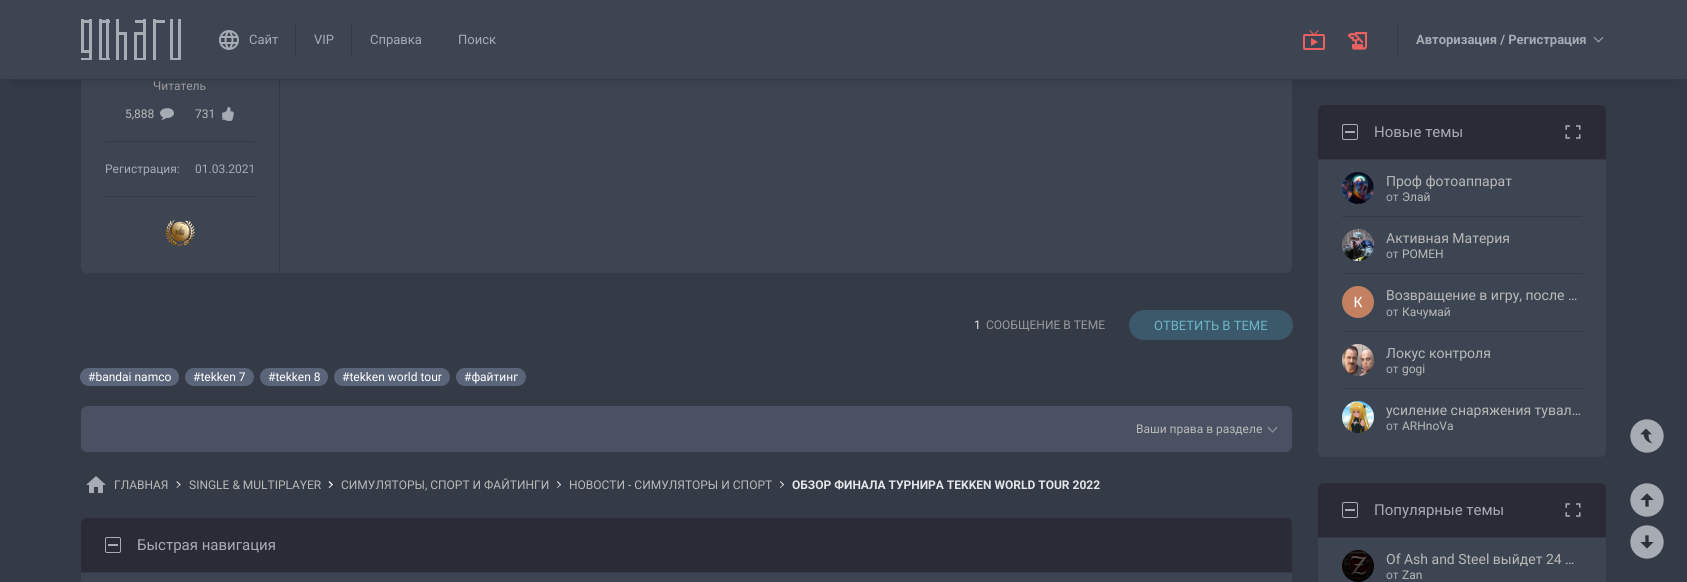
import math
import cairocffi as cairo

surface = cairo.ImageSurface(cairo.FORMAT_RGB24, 1687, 582)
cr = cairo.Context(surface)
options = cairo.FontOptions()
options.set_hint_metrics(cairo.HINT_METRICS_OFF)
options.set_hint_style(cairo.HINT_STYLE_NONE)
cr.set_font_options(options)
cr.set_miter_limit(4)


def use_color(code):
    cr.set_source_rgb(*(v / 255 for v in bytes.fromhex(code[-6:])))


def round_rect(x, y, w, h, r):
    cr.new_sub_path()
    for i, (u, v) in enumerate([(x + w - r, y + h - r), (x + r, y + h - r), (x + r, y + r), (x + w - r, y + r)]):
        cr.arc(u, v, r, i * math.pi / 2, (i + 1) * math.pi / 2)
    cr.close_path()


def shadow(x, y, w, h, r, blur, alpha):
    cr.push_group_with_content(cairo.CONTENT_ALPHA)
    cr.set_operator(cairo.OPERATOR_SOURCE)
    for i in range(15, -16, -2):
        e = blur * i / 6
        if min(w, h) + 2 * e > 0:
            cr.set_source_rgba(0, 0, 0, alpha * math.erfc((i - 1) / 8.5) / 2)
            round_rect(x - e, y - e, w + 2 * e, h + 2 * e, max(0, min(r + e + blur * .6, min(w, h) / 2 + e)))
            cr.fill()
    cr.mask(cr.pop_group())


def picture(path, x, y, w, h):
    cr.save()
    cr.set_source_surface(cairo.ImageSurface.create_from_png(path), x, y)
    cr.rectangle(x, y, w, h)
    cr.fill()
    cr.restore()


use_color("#343a46")
cr.paint()
use_color("#3d4552")
cr.new_path()
cr.move_to(81, -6)
cr.line_to(280, -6)
cr.line_to(280, 273)
cr.line_to(87, 273)
cr.curve_to(83.5, 273, 81, 270.5, 81, 267)
cr.close_path()
cr.fill()
use_color("#333b46")
cr.rectangle(279, 80, 1, 193)
cr.fill()
use_color("#3d4552")
cr.new_path()
cr.move_to(280, -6)
cr.line_to(1292, -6)
cr.line_to(1292, 267)
cr.curve_to(1292, 270.5, 1289.5, 273, 1286, 273)
cr.line_to(280, 273)
cr.close_path()
cr.fill()
use_color("#000000")
shadow(15, 30, 1657, 50, 0, 7.5, 0.15)
use_color("#3d4552")
cr.rectangle(0, 0, 1687, 79)
cr.fill()
use_color("#333b46")
cr.rectangle(12, 79, 1663, 1)
cr.fill()
picture("img1.png", 81, 19, 100, 41)
picture("img2.png", 219, 30, 20, 20)
cr.select_font_face("Roboto")
cr.set_font_size(13)
use_color("#a7abb4")
cr.move_to(249, 44)
cr.show_text("Сайт")
use_color("#333b46")
cr.rectangle(295, 25, 1, 30)
cr.fill()
use_color("#a7abb4")
cr.move_to(314, 44)
cr.show_text("VIP")
use_color("#333b46")
cr.rectangle(351, 25, 1, 30)
cr.fill()
use_color("#a7abb4")
cr.move_to(370, 44)
cr.show_text("Справка")
cr.move_to(458, 44)
cr.show_text("Поиск")
picture("img3.png", 1303, 30, 22, 20)
picture("img4.png", 1347, 32, 20, 18)
use_color("#333b46")
cr.rectangle(1397, 25, 1, 30)
cr.fill()
cr.select_font_face("Roboto", cairo.FONT_SLANT_NORMAL, cairo.FONT_WEIGHT_BOLD)
use_color("#a7abb4")
cr.move_to(1416, 44)
cr.show_text("Авторизация / Регистрация")
cr.new_path()
cr.move_to(1602.5, 37)
cr.line_to(1603.5, 37.5)
cr.line_to(1598.5, 42.5)
cr.line_to(1598, 41.5)
cr.close_path()
cr.fill()
cr.new_path()
cr.move_to(1594.5, 37)
cr.line_to(1599, 41.5)
cr.line_to(1598.5, 42.5)
cr.line_to(1593.5, 37.5)
cr.close_path()
cr.fill()
cr.select_font_face("Roboto")
cr.set_font_size(12)
use_color("#9b9a9d")
cr.move_to(153, 90)
cr.show_text("Читатель")
use_color("#b9b9b9")
cr.move_to(125, 118)
cr.show_text("5,888")
picture("img5.png", 160, 108, 14, 12)
cr.move_to(195, 118)
cr.show_text("731")
picture("img6.png", 222, 107, 12, 14)
use_color("#333b46")
cr.rectangle(105, 141, 150, 1)
cr.fill()
use_color("#a7abb4")
cr.move_to(105, 173)
cr.show_text("Регистрация:")
cr.move_to(195, 173)
cr.show_text("01.03.2021")
use_color("#333b46")
cr.rectangle(105, 196, 150, 1)
cr.fill()
picture("img7.png", 165, 220, 30, 26)
use_color("#e5e6ea")
cr.move_to(974, 329)
cr.show_text("1")
use_color("#9b9a9d")
cr.move_to(986, 329)
cr.show_text("СООБЩЕНИЕ В ТЕМЕ")
use_color("#3c586b")
round_rect(1129.5, 310.5, 163, 29, 14.5)
cr.fill_preserve()
cr.set_line_width(1)
cr.stroke()
cr.set_font_size(13)
use_color("#6bb6c7")
cr.move_to(1154, 330)
cr.show_text("ОТВЕТИТЬ В ТЕМЕ")
use_color("#5b657a")
round_rect(80, 368, 99, 18, 9)
cr.fill()
cr.set_font_size(12)
use_color("#ffffff")
cr.move_to(88, 381)
cr.show_text("#bandai namco")
use_color("#5b657a")
round_rect(185, 368, 69, 18, 9)
cr.fill()
use_color("#ffffff")
cr.move_to(193, 381)
cr.show_text("#tekken 7")
use_color("#5b657a")
round_rect(260, 368, 68, 18, 9)
cr.fill()
use_color("#ffffff")
cr.move_to(268, 381)
cr.show_text("#tekken 8")
use_color("#5b657a")
round_rect(334, 368, 116, 18, 9)
cr.fill()
use_color("#ffffff")
cr.move_to(342, 381)
cr.show_text("#tekken world tour")
use_color("#5b657a")
round_rect(456, 368, 70, 18, 9)
cr.fill()
use_color("#ffffff")
cr.move_to(464, 381)
cr.show_text("#файтинг")
use_color("#495162")
round_rect(81, 406, 1211, 46, 6)
cr.fill()
use_color("#b9b9b9")
cr.move_to(1136, 433)
cr.show_text("Ваши права в разделе")
use_color("#a7abb4")
cr.new_path()
cr.move_to(1276.5, 427)
cr.line_to(1277.5, 427.5)
cr.line_to(1272.5, 432.5)
cr.line_to(1272, 432)
cr.close_path()
cr.fill()
cr.new_path()
cr.move_to(1268.5, 427)
cr.line_to(1273, 432)
cr.line_to(1272.5, 432.5)
cr.line_to(1267.5, 427.5)
cr.close_path()
cr.fill()
picture("img8.png", 1630, 419, 34, 34)
picture("img9.png", 1630, 483, 34, 34)
picture("img10.png", 1630, 525, 34, 34)
picture("img11.png", 86, 476, 20, 17)
use_color("#b9b9b9")
cr.move_to(114, 489)
cr.show_text("ГЛАВНАЯ")
use_color("#e5e6ea")
cr.new_path()
cr.move_to(177, 481)
cr.line_to(180.5, 484.5)
cr.line_to(180, 485.5)
cr.line_to(176.5, 482)
cr.close_path()
cr.fill()
cr.new_path()
cr.move_to(180, 484)
cr.line_to(180.5, 484.5)
cr.line_to(177, 488)
cr.line_to(176.5, 487.5)
cr.close_path()
cr.fill()
use_color("#b9b9b9")
cr.move_to(189, 489)
cr.show_text("SINGLE & MULTIPLAYER")
use_color("#e5e6ea")
cr.new_path()
cr.move_to(329.5, 481)
cr.line_to(333, 484.5)
cr.line_to(332, 485.5)
cr.line_to(328.5, 482)
cr.close_path()
cr.fill()
cr.new_path()
cr.move_to(332, 484)
cr.line_to(333, 484.5)
cr.line_to(329.5, 488)
cr.line_to(328.5, 487.5)
cr.close_path()
cr.fill()
use_color("#b9b9b9")
cr.move_to(341, 489)
cr.show_text("СИМУЛЯТОРЫ, СПОРТ И ФАЙТИНГИ")
use_color("#e5e6ea")
cr.new_path()
cr.move_to(557.5, 481)
cr.line_to(561, 484.5)
cr.line_to(560.5, 485.5)
cr.line_to(557, 482)
cr.close_path()
cr.fill()
cr.new_path()
cr.move_to(560.5, 484)
cr.line_to(561, 484.5)
cr.line_to(557.5, 488)
cr.line_to(557, 487.5)
cr.close_path()
cr.fill()
use_color("#b9b9b9")
cr.move_to(569, 489)
cr.show_text("НОВОСТИ - СИМУЛЯТОРЫ И СПОРТ")
use_color("#e5e6ea")
cr.new_path()
cr.move_to(780.5, 481)
cr.line_to(784, 484.5)
cr.line_to(783.5, 485.5)
cr.line_to(780, 482)
cr.close_path()
cr.fill()
cr.new_path()
cr.move_to(783.5, 484)
cr.line_to(784, 484.5)
cr.line_to(780.5, 488)
cr.line_to(780, 487.5)
cr.close_path()
cr.fill()
cr.select_font_face("Roboto", cairo.FONT_SLANT_NORMAL, cairo.FONT_WEIGHT_BOLD)
cr.move_to(792, 489)
cr.show_text("ОБЗОР ФИНАЛА ТУРНИРА TEKKEN WORLD TOUR 2022")
use_color("#2b2b37")
cr.new_path()
cr.move_to(87, 518)
cr.line_to(1286, 518)
cr.curve_to(1289.5, 518, 1292, 520.5, 1292, 524)
cr.line_to(1292, 572)
cr.line_to(81, 572)
cr.line_to(81, 524)
cr.curve_to(81, 520.5, 83.5, 518, 87, 518)
cr.close_path()
cr.fill()
round_rect(105.5, 537.5, 15, 15, 1.5)
use_color("#a7abb4")
cr.stroke()
cr.rectangle(108, 544, 10, 2)
cr.fill()
cr.select_font_face("Roboto")
cr.set_font_size(15)
cr.move_to(137, 550)
cr.show_text("Быстрая навигация")
use_color("#3d4552")
cr.rectangle(81, 573, 1211, 9)
cr.fill()
use_color("#2b2b37")
cr.new_path()
cr.move_to(1324, 105)
cr.line_to(1600, 105)
cr.curve_to(1603.5, 105, 1606, 107.5, 1606, 111)
cr.line_to(1606, 159)
cr.line_to(1318, 159)
cr.line_to(1318, 111)
cr.curve_to(1318, 107.5, 1320.5, 105, 1324, 105)
cr.close_path()
cr.fill()
round_rect(1342.5, 124.5, 15, 15, 1.5)
use_color("#a7abb4")
cr.stroke()
cr.rectangle(1345, 131, 10, 2)
cr.fill()
cr.move_to(1374, 137)
cr.show_text("Новые темы")
picture("img12.png", 1565, 125, 16, 14)
use_color("#3d4552")
cr.new_path()
cr.move_to(1318, 160)
cr.line_to(1606, 160)
cr.line_to(1606, 451)
cr.curve_to(1606, 454.5, 1603.5, 457, 1600, 457)
cr.line_to(1324, 457)
cr.curve_to(1320.5, 457, 1318, 454.5, 1318, 451)
cr.close_path()
cr.fill()
picture("img13.png", 1342, 172, 32, 32)
cr.set_font_size(14)
use_color("#b9b9b9")
cr.move_to(1386, 186)
cr.show_text("Проф фотоаппарат")
cr.set_font_size(12)
use_color("#a7abb4")
cr.move_to(1386, 201)
cr.show_text("от")
use_color("#b9b9b9")
cr.move_to(1402, 201)
cr.show_text("Элай")
use_color("#333b46")
cr.rectangle(1342, 216, 240, 1)
cr.fill()
picture("img14.png", 1342, 229, 32, 32)
cr.set_font_size(14)
use_color("#b9b9b9")
cr.move_to(1386, 243)
cr.show_text("Активная Материя")
cr.set_font_size(12)
use_color("#a7abb4")
cr.move_to(1386, 258)
cr.show_text("от")
use_color("#b9b9b9")
cr.move_to(1402, 258)
cr.show_text("POMEH")
use_color("#333b46")
cr.rectangle(1342, 273, 240, 1)
cr.fill()
picture("img15.png", 1342, 286, 32, 32)
cr.set_font_size(14)
use_color("#b9b9b9")
cr.move_to(1386, 300)
cr.show_text("Возвращение в игру, после …")
cr.set_font_size(12)
use_color("#a7abb4")
cr.move_to(1386, 316)
cr.show_text("от")
use_color("#b9b9b9")
cr.move_to(1402, 316)
cr.show_text("Качумай")
use_color("#333b46")
cr.rectangle(1342, 331, 240, 1)
cr.fill()
picture("img16.png", 1342, 344, 32, 32)
cr.set_font_size(14)
use_color("#b9b9b9")
cr.move_to(1386, 358)
cr.show_text("Локус контроля")
cr.set_font_size(12)
use_color("#a7abb4")
cr.move_to(1386, 373)
cr.show_text("от")
use_color("#b9b9b9")
cr.move_to(1402, 373)
cr.show_text("gogi")
use_color("#333b46")
cr.rectangle(1342, 388, 240, 1)
cr.fill()
picture("img17.png", 1342, 401, 32, 32)
cr.set_font_size(14)
use_color("#b9b9b9")
cr.move_to(1386, 415)
cr.show_text("усиление снаряжения тувал…")
cr.set_font_size(12)
use_color("#a7abb4")
cr.move_to(1386, 430)
cr.show_text("от")
use_color("#b9b9b9")
cr.move_to(1402, 430)
cr.show_text("ARHnoVa")
use_color("#2b2b37")
cr.new_path()
cr.move_to(1324, 483)
cr.line_to(1600, 483)
cr.curve_to(1603.5, 483, 1606, 485.5, 1606, 489)
cr.line_to(1606, 537)
cr.line_to(1318, 537)
cr.line_to(1318, 489)
cr.curve_to(1318, 485.5, 1320.5, 483, 1324, 483)
cr.close_path()
cr.fill()
round_rect(1342.5, 502.5, 15, 15, 1.5)
use_color("#a7abb4")
cr.stroke()
cr.rectangle(1345, 509, 10, 2)
cr.fill()
cr.set_font_size(15)
cr.move_to(1374, 515)
cr.show_text("Популярные темы")
picture("img12.png", 1565, 503, 16, 14)
use_color("#3d4552")
cr.rectangle(1318, 538, 288, 44)
cr.fill()
picture("img18.png", 1342, 550, 32, 32)
cr.set_font_size(14)
use_color("#b9b9b9")
cr.move_to(1386, 564)
cr.show_text("Of Ash and Steel выйдет 24 …")
cr.set_font_size(12)
use_color("#a7abb4")
cr.move_to(1386, 579)
cr.show_text("от")
use_color("#b9b9b9")
cr.move_to(1402, 579)
cr.show_text("Zan")
surface.write_to_png("result.png")
